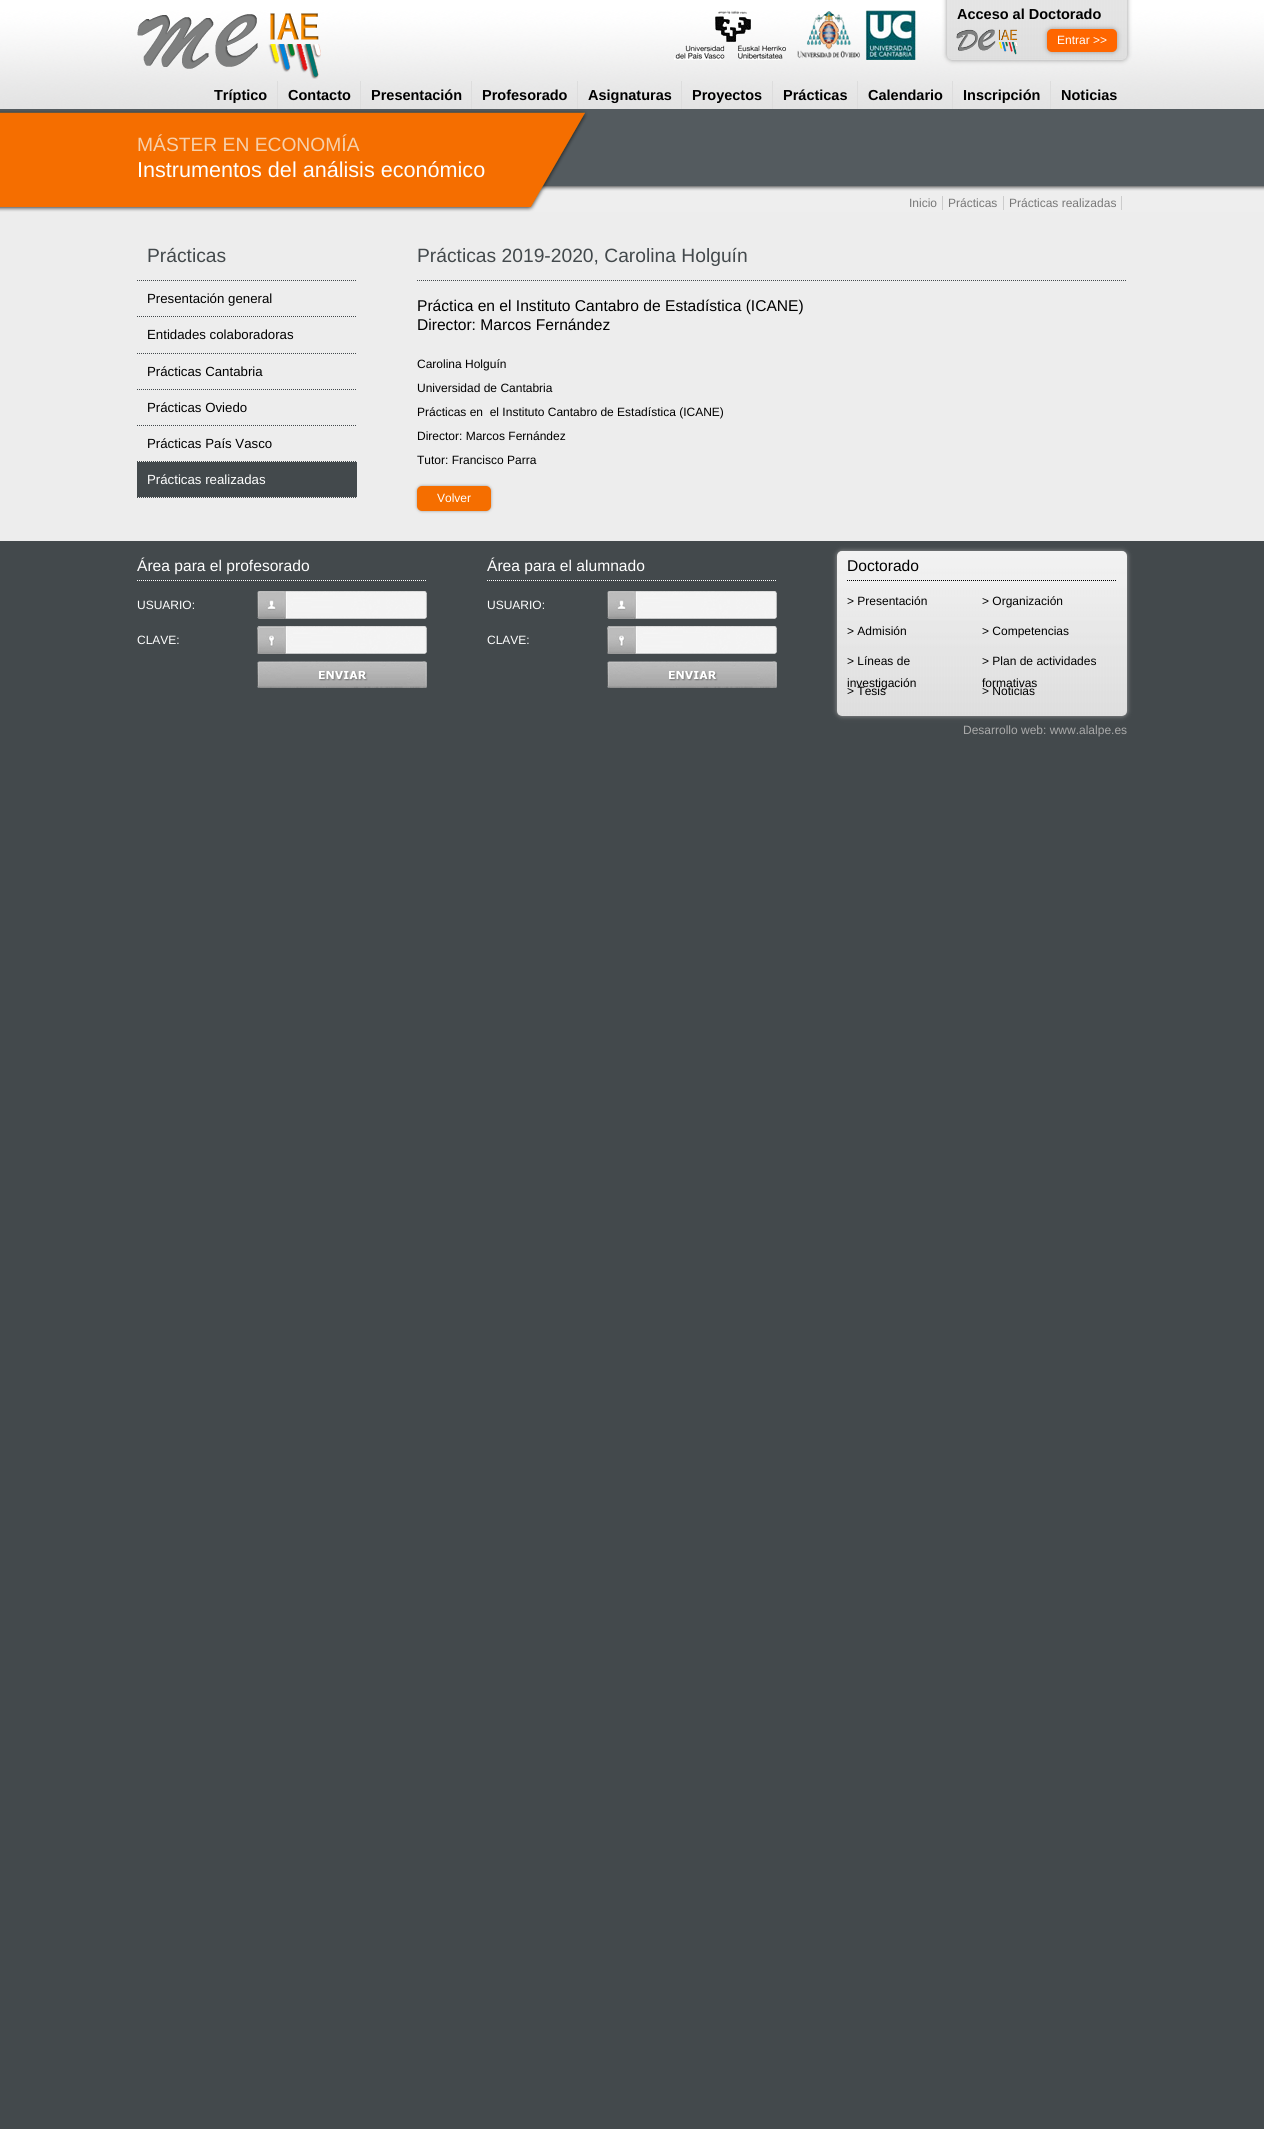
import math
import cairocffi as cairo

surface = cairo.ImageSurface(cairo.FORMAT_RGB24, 1264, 2129)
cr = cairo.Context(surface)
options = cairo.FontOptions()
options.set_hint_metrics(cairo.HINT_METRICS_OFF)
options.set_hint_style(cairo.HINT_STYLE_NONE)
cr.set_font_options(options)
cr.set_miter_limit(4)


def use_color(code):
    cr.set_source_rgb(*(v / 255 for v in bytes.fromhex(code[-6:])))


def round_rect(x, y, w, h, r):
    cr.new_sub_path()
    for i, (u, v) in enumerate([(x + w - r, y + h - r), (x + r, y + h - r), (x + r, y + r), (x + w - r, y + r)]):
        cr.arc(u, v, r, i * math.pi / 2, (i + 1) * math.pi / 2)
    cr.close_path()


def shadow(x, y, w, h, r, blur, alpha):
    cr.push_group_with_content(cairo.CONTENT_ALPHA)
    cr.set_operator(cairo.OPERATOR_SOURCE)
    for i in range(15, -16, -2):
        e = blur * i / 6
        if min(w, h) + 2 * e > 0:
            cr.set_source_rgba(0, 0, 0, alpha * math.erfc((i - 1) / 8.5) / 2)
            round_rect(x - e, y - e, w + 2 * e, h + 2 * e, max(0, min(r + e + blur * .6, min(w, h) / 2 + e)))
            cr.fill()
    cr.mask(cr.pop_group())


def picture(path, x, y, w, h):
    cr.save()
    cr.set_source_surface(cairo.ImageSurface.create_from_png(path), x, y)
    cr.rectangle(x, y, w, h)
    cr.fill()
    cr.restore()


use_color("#43494c")
cr.paint()
use_color("#ededed")
cr.rectangle(0, 212, 1264, 329)
cr.fill()
picture("img1.png", 0, 0, 1264, 109)
picture("img2.png", 0, 109, 1264, 103)
picture("img3.png", 137, 13, 184, 66)
picture("img4.png", 674, 10, 242, 50)
use_color("#999999")
shadow(947, -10, 180, 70, 5, 2.5, 1)
picture("img5.png", 947, 0, 180, 60)
cr.select_font_face("Liberation Sans", cairo.FONT_SLANT_NORMAL, cairo.FONT_WEIGHT_BOLD)
cr.set_font_size(14.5)
use_color("#000000")
cr.move_to(957, 19)
cr.show_text("Acceso al Doctorado")
picture("img6.png", 956, 29, 62, 26)
use_color("#999999")
shadow(1047, 29, 70, 23, 5, 2.5, 1)
use_color("#ff6600")
round_rect(1047, 29, 70, 23, 5)
cr.fill()
cr.select_font_face("Liberation Sans")
cr.set_font_size(12)
use_color("#ffffff")
cr.move_to(1057, 44)
cr.show_text("Entrar >>")
cr.set_font_size(19.25)
use_color("#f7d0ab")
cr.move_to(137, 151)
cr.show_text("MÁSTER EN ECONOMÍA")
cr.set_font_size(21.6)
use_color("#ffffff")
cr.move_to(137, 177)
cr.show_text("Instrumentos del análisis económico")
use_color("#dddddd")
cr.rectangle(277, 81, 1, 28)
cr.fill()
cr.select_font_face("Liberation Sans", cairo.FONT_SLANT_NORMAL, cairo.FONT_WEIGHT_BOLD)
cr.set_font_size(14.5)
use_color("#000000")
cr.move_to(214, 100)
cr.show_text("Tríptico")
use_color("#dddddd")
cr.rectangle(360, 81, 1, 28)
cr.fill()
use_color("#000000")
cr.move_to(288, 100)
cr.show_text("Contacto")
use_color("#dddddd")
cr.rectangle(471, 81, 1, 28)
cr.fill()
use_color("#000000")
cr.move_to(371, 100)
cr.show_text("Presentación")
use_color("#dddddd")
cr.rectangle(577, 81, 1, 28)
cr.fill()
use_color("#000000")
cr.move_to(482, 100)
cr.show_text("Profesorado")
use_color("#dddddd")
cr.rectangle(681, 81, 1, 28)
cr.fill()
use_color("#000000")
cr.move_to(588, 100)
cr.show_text("Asignaturas")
use_color("#dddddd")
cr.rectangle(772, 81, 1, 28)
cr.fill()
use_color("#000000")
cr.move_to(692, 100)
cr.show_text("Proyectos")
use_color("#dddddd")
cr.rectangle(857, 81, 1, 28)
cr.fill()
use_color("#000000")
cr.move_to(783, 100)
cr.show_text("Prácticas")
use_color("#dddddd")
cr.rectangle(952, 81, 1, 28)
cr.fill()
use_color("#000000")
cr.move_to(868, 100)
cr.show_text("Calendario")
use_color("#dddddd")
cr.rectangle(1050, 81, 1, 28)
cr.fill()
use_color("#000000")
cr.move_to(963, 100)
cr.show_text("Inscripción")
cr.move_to(1061, 100)
cr.show_text("Noticias")
cr.select_font_face("Liberation Sans")
cr.set_font_size(12)
use_color("#777777")
cr.move_to(909, 207)
cr.show_text("Inicio")
use_color("#cccccc")
cr.rectangle(942, 196, 1, 14)
cr.fill()
use_color("#777777")
cr.move_to(948, 207)
cr.show_text("Prácticas")
use_color("#cccccc")
cr.rectangle(1003, 196, 1, 14)
cr.fill()
use_color("#777777")
cr.move_to(1009, 207)
cr.show_text("Prácticas realizadas")
use_color("#cccccc")
cr.rectangle(1121, 196, 1, 14)
cr.fill()
cr.set_font_size(19.25)
use_color("#43494c")
cr.move_to(147, 262)
cr.show_text("Prácticas")
cr.new_path()
cr.move_to(137, 280.5)
cr.line_to(357, 280.5)
cr.set_line_width(1)
cr.set_dash([1, 1])
cr.stroke()
cr.new_path()
cr.move_to(137, 316.5)
cr.line_to(357, 316.5)
cr.stroke()
cr.set_font_size(13.25)
use_color("#000000")
cr.move_to(147, 303)
cr.show_text("Presentación general")
cr.new_path()
cr.move_to(137, 353.5)
cr.line_to(357, 353.5)
use_color("#43494c")
cr.stroke()
use_color("#000000")
cr.move_to(147, 339)
cr.show_text("Entidades colaboradoras")
cr.new_path()
cr.move_to(137, 389.5)
cr.line_to(357, 389.5)
use_color("#43494c")
cr.stroke()
use_color("#000000")
cr.move_to(147, 376)
cr.show_text("Prácticas Cantabria")
cr.new_path()
cr.move_to(137, 425.5)
cr.line_to(357, 425.5)
use_color("#43494c")
cr.stroke()
use_color("#000000")
cr.move_to(147, 412)
cr.show_text("Prácticas Oviedo")
cr.new_path()
cr.move_to(137, 461.5)
cr.line_to(357, 461.5)
use_color("#43494c")
cr.stroke()
use_color("#000000")
cr.move_to(147, 448)
cr.show_text("Prácticas País Vasco")
cr.new_path()
cr.move_to(137, 497.5)
cr.line_to(357, 497.5)
use_color("#43494c")
cr.stroke()
cr.rectangle(137, 462, 220, 35)
cr.fill()
use_color("#ffffff")
cr.move_to(147, 484)
cr.show_text("Prácticas realizadas")
cr.new_path()
cr.move_to(417, 280.5)
cr.line_to(1127, 280.5)
use_color("#43494c")
cr.stroke()
cr.set_font_size(19.25)
cr.move_to(417, 262)
cr.show_text("Prácticas 2019-2020, Carolina Holguín")
cr.set_font_size(15.6)
use_color("#000000")
cr.move_to(417, 311)
cr.show_text("Práctica en el Instituto Cantabro de Estadística (ICANE)")
cr.move_to(417, 330)
cr.show_text("Director: Marcos Fernández")
cr.set_font_size(12)
cr.move_to(417, 368)
cr.show_text("Carolina Holguín")
cr.move_to(417, 392)
cr.show_text("Universidad de Cantabria")
cr.move_to(417, 416)
cr.show_text("Prácticas en  el Instituto Cantabro de Estadística (ICANE)")
cr.move_to(417, 440)
cr.show_text("Director: Marcos Fernández")
cr.move_to(417, 464)
cr.show_text("Tutor: Francisco Parra")
use_color("#999999")
shadow(417, 486, 74, 25, 5, 1.5, 1)
use_color("#f56e00")
round_rect(417, 486, 74, 25, 5)
cr.fill()
use_color("#ffffff")
cr.move_to(437, 502)
cr.show_text("Volver")
cr.new_path()
cr.move_to(137, 580.5)
cr.line_to(427, 580.5)
cr.stroke()
cr.set_font_size(15.6)
cr.move_to(137, 571)
cr.show_text("Área para el profesorado")
cr.set_font_size(12)
cr.move_to(137, 609)
cr.show_text("USUARIO:")
picture("img7.png", 257, 591, 170, 28)
cr.move_to(137, 644)
cr.show_text("CLAVE:")
picture("img8.png", 257, 626, 170, 28)
picture("img9.png", 257, 661, 170, 27)
cr.new_path()
cr.move_to(487, 580.5)
cr.line_to(777, 580.5)
cr.stroke()
cr.set_font_size(15.6)
cr.move_to(487, 571)
cr.show_text("Área para el alumnado")
cr.set_font_size(12)
cr.move_to(487, 609)
cr.show_text("USUARIO:")
picture("img7.png", 607, 591, 170, 28)
cr.move_to(487, 644)
cr.show_text("CLAVE:")
picture("img8.png", 607, 626, 170, 28)
picture("img9.png", 607, 661, 170, 27)
use_color("#999999")
shadow(837, 551, 290, 165, 5, 2.5, 1)
picture("img10.png", 837, 551, 290, 165)
cr.new_path()
cr.move_to(847, 580.5)
cr.line_to(1117, 580.5)
use_color("#000000")
cr.stroke()
cr.set_font_size(15.6)
cr.move_to(847, 571)
cr.show_text("Doctorado")
cr.set_font_size(12)
cr.move_to(847, 605)
cr.show_text("> Presentación")
cr.move_to(982, 605)
cr.show_text("> Organización")
cr.move_to(847, 635)
cr.show_text("> Admisión")
cr.move_to(982, 635)
cr.show_text("> Competencias")
cr.move_to(847, 665)
cr.show_text("> Líneas de")
cr.move_to(847, 687)
cr.show_text("investigación")
cr.move_to(982, 665)
cr.show_text("> Plan de actividades")
cr.move_to(982, 687)
cr.show_text("formativas")
cr.move_to(847, 695)
cr.show_text("> Tesis")
cr.move_to(982, 695)
cr.show_text("> Noticias")
use_color("#aaaaaa")
cr.move_to(963, 734)
cr.show_text("Desarrollo web: www.alalpe.es")
surface.write_to_png("result.png")
